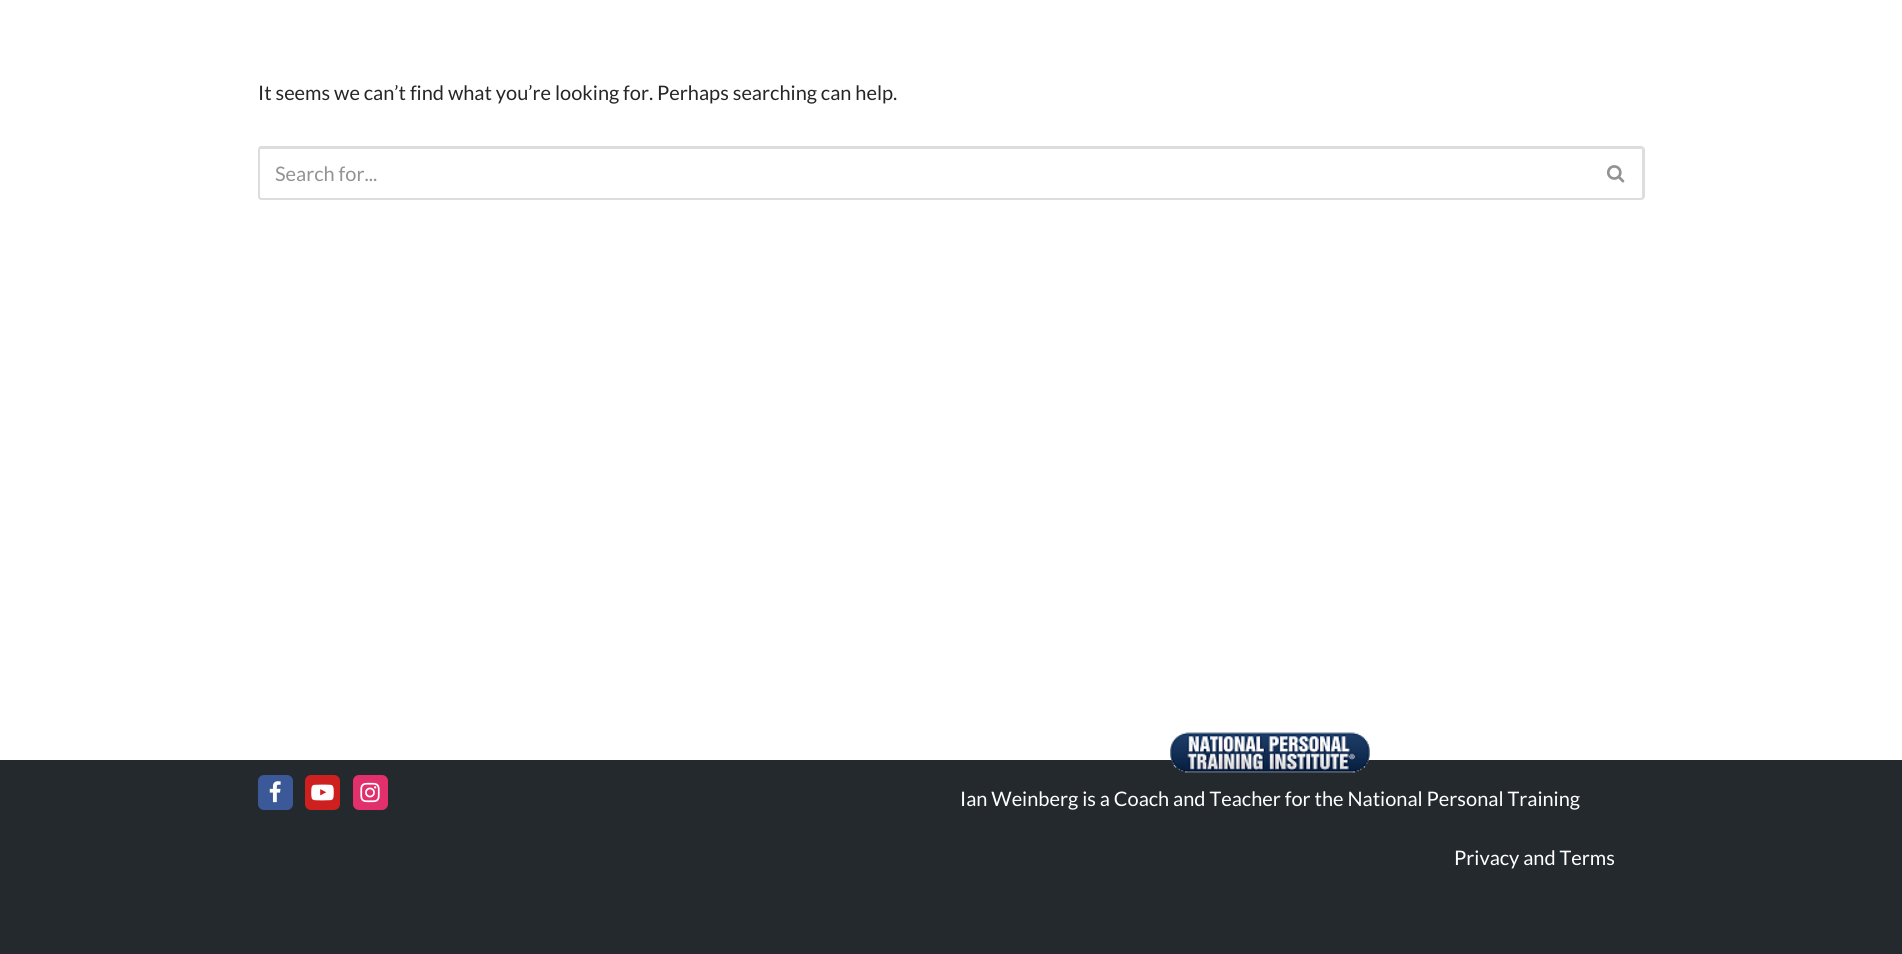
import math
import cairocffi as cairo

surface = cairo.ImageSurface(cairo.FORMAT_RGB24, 1902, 954)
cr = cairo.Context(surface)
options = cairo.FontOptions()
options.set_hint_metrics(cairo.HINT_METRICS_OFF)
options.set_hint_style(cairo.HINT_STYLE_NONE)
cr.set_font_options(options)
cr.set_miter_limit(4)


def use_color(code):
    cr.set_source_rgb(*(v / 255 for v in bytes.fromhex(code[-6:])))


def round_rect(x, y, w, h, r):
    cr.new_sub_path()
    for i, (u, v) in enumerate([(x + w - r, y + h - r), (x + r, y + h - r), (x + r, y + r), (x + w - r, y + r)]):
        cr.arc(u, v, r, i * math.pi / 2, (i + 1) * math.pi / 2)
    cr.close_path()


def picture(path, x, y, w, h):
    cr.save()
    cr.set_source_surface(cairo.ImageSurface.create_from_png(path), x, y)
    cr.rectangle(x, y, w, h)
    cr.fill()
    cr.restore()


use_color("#ffffff")
cr.paint()
cr.select_font_face("Lato")
cr.set_font_size(20)
use_color("#272626")
cr.move_to(258, 100)
cr.show_text("It seems we can’t find what you’re looking for. Perhaps searching can help.")
use_color("#dddddd")
cr.set_fill_rule(cairo.FILL_RULE_EVEN_ODD)
cr.new_path()
cr.move_to(261, 146)
cr.line_to(1589, 146)
cr.line_to(1589, 200)
cr.line_to(261, 200)
cr.curve_to(259, 200, 258, 198, 258, 196)
cr.line_to(258, 150)
cr.curve_to(258, 148, 259, 146, 261, 146)
cr.close_path()
cr.move_to(261, 149)
cr.line_to(1589, 149)
cr.line_to(1589, 198)
cr.line_to(261, 198)
cr.curve_to(261, 198, 260, 197, 260, 196)
cr.line_to(260, 150)
cr.curve_to(260, 149, 261, 149, 261, 149)
cr.close_path()
cr.fill()
use_color("#939393")
cr.move_to(275, 181)
cr.show_text("Search for...")
use_color("#dddddd")
cr.new_path()
cr.move_to(1589, 146)
cr.line_to(1641, 146)
cr.curve_to(1643, 146, 1645, 148, 1645, 150)
cr.line_to(1645, 196)
cr.curve_to(1645, 198, 1643, 200, 1641, 200)
cr.line_to(1589, 200)
cr.close_path()
cr.move_to(1589, 149)
cr.line_to(1641, 149)
cr.curve_to(1642, 149, 1642, 149, 1642, 150)
cr.line_to(1642, 196)
cr.curve_to(1642, 197, 1642, 198, 1641, 198)
cr.line_to(1589, 198)
cr.close_path()
cr.fill()
picture("img1.png", 1606, 165, 19, 18)
use_color("#24292e")
cr.rectangle(0, 760, 1902, 194)
cr.fill()
use_color("#3b5998")
round_rect(258, 775, 35, 35, 6)
cr.fill()
picture("img2.png", 269, 781, 12, 22)
use_color("#cd201f")
round_rect(305, 775, 35, 35, 6)
cr.fill()
picture("img3.png", 311, 784, 23, 17)
use_color("#e1306c")
round_rect(353, 775, 35, 35, 6)
cr.fill()
picture("img4.png", 360, 782, 20, 21)
picture("img5.png", 1170, 732, 200, 41)
use_color("#ffffff")
cr.move_to(960, 806)
cr.show_text("Ian Weinberg is a Coach and Teacher for the National Personal Training")
cr.move_to(1454, 865)
cr.show_text("Privacy and Terms")
surface.write_to_png("result.png")
